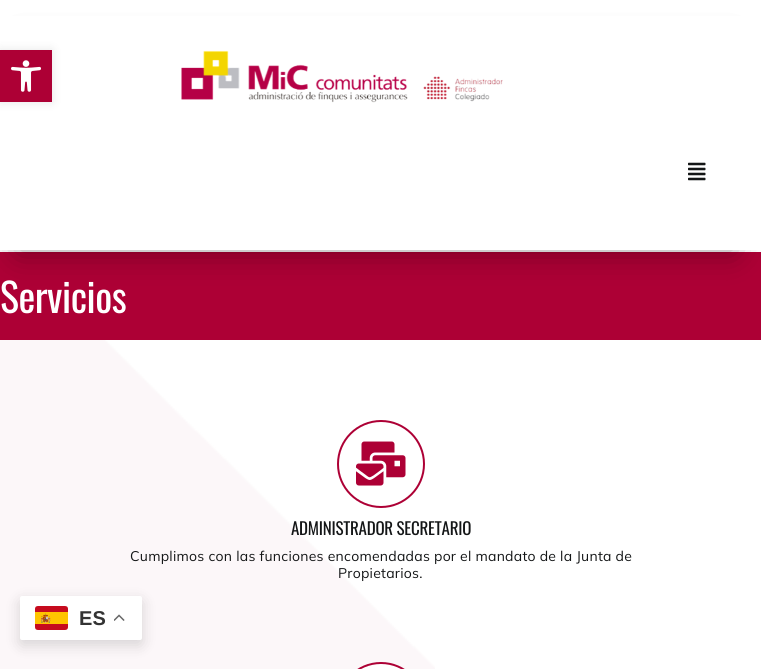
import math
import cairocffi as cairo

surface = cairo.ImageSurface(cairo.FORMAT_RGB24, 761, 669)
cr = cairo.Context(surface)
options = cairo.FontOptions()
options.set_hint_metrics(cairo.HINT_METRICS_OFF)
options.set_hint_style(cairo.HINT_STYLE_NONE)
cr.set_font_options(options)
cr.set_miter_limit(4)


def use_color(code):
    cr.set_source_rgb(*(v / 255 for v in bytes.fromhex(code[-6:])))


def spaced_text(x, y, s, letter, word):
    cr.move_to(x, y)
    for ch in s:
        cr.show_text(ch)
        cr.rel_move_to(letter + word * (ch == ' '), 0)


def round_rect(x, y, w, h, r):
    cr.new_sub_path()
    for i, (u, v) in enumerate([(x + w - r, y + h - r), (x + r, y + h - r), (x + r, y + r), (x + w - r, y + r)]):
        cr.arc(u, v, r, i * math.pi / 2, (i + 1) * math.pi / 2)
    cr.close_path()


def shadow(x, y, w, h, r, blur, alpha):
    cr.push_group_with_content(cairo.CONTENT_ALPHA)
    cr.set_operator(cairo.OPERATOR_SOURCE)
    for i in range(15, -16, -2):
        e = blur * i / 6
        if min(w, h) + 2 * e > 0:
            cr.set_source_rgba(0, 0, 0, alpha * math.erfc((i - 1) / 8.5) / 2)
            round_rect(x - e, y - e, w + 2 * e, h + 2 * e, max(0, min(r + e + blur * .6, min(w, h) / 2 + e)))
            cr.fill()
    cr.mask(cr.pop_group())


def picture(path, x, y, w, h):
    cr.save()
    cr.set_source_surface(cairo.ImageSurface.create_from_png(path), x, y)
    cr.rectangle(x, y, w, h)
    cr.fill()
    cr.restore()


use_color("#ffffff")
cr.paint()
picture("img1.png", 0, 250, 435, 419)
use_color("#ad0035")
cr.rectangle(0, 252, 761, 88)
cr.fill()
use_color("#000000")
shadow(19, 47, 715, 204, 0, 16, 0.39)
use_color("#ffffff")
cr.rectangle(0, 16, 761, 234)
cr.fill()
use_color("#000000")
shadow(0, 50, 52, 52, 0, 5, 0.1)
use_color("#ad0035")
cr.rectangle(0, 50, 52, 52)
cr.fill()
picture("img2.png", 11, 60, 30, 32)
picture("img3.png", 181, 50, 322, 53)
picture("img4.png", 688, 162, 18, 19)
cr.select_font_face("Oswald")
cr.set_font_size(40)
use_color("#ffffff")
spaced_text(0, 313, "Servicios", -0.5, 0)
cr.new_path()
cr.arc(381, 464, 43, 0, 2 * math.pi)
use_color("#ad0035")
cr.stroke()
picture("img5.png", 356, 441, 50, 45)
cr.set_font_size(17)
use_color("#141617")
spaced_text(291, 535, "ADMINISTRADOR SECRETARIO", -0.25, 0)
cr.select_font_face("Mulish ExtraLight")
cr.set_font_size(14)
spaced_text(130, 561, "Cumplimos con las funciones encomendadas por el mandato de la Junta de", 0.25, 0)
spaced_text(338, 578, "Propietarios.", 0.25, 0)
use_color("#ffffff")
round_rect(338, 663, 86, 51, 43)
cr.fill_preserve()
use_color("#ad0035")
cr.stroke()
use_color("#000000")
shadow(20, 601, 122, 44, 2, 7.5, 0.15)
use_color("#ffffff")
round_rect(20, 596, 122, 44, 2)
cr.fill()
picture("img6.png", 35, 606, 33, 24)
cr.select_font_face("Liberation Sans", cairo.FONT_SLANT_NORMAL, cairo.FONT_WEIGHT_BOLD)
cr.set_font_size(20)
use_color("#333333")
spaced_text(79, 625, "ES", 0.25, 0)
picture("img7.png", 114, 614, 11, 7)
surface.write_to_png("result.png")
